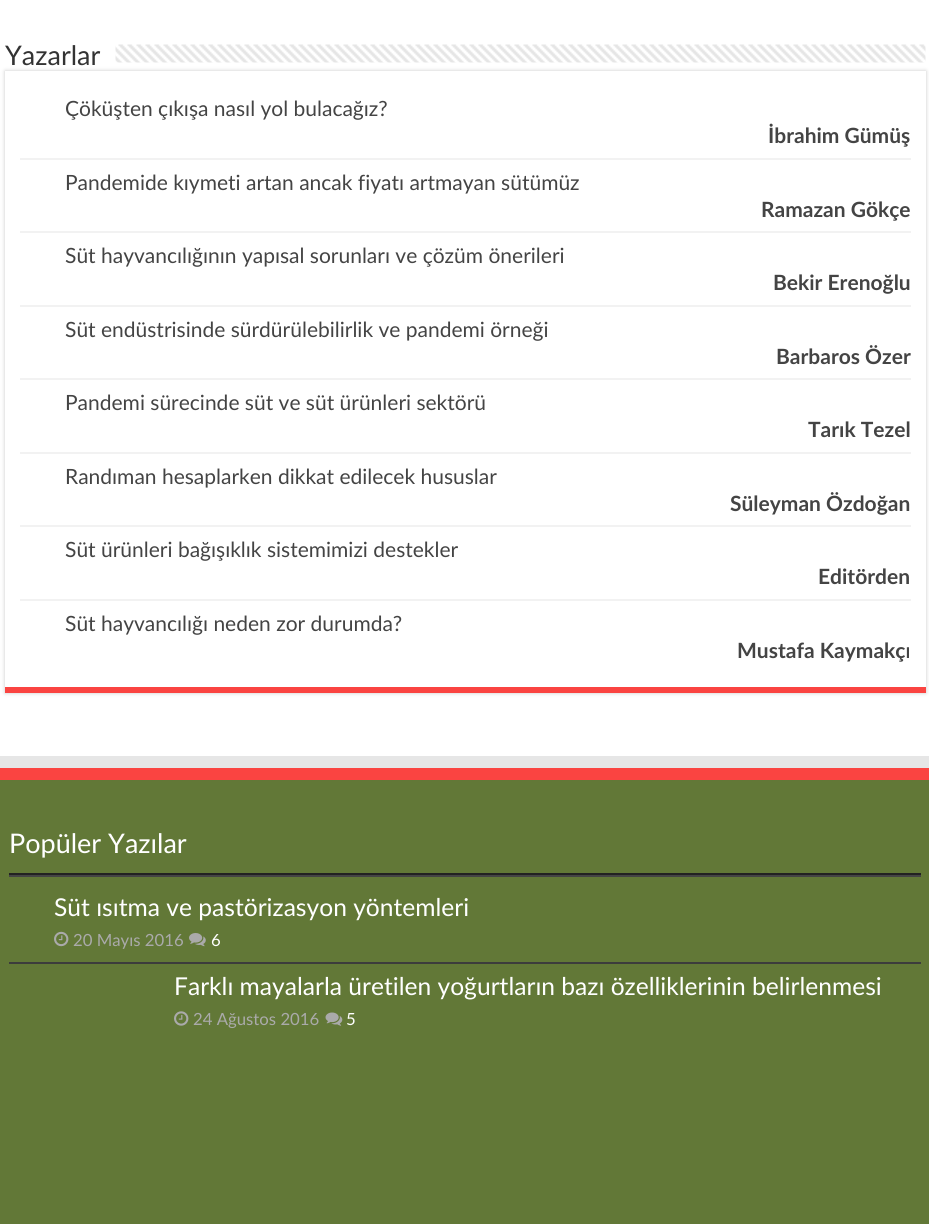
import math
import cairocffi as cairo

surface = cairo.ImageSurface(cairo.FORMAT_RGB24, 929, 1224)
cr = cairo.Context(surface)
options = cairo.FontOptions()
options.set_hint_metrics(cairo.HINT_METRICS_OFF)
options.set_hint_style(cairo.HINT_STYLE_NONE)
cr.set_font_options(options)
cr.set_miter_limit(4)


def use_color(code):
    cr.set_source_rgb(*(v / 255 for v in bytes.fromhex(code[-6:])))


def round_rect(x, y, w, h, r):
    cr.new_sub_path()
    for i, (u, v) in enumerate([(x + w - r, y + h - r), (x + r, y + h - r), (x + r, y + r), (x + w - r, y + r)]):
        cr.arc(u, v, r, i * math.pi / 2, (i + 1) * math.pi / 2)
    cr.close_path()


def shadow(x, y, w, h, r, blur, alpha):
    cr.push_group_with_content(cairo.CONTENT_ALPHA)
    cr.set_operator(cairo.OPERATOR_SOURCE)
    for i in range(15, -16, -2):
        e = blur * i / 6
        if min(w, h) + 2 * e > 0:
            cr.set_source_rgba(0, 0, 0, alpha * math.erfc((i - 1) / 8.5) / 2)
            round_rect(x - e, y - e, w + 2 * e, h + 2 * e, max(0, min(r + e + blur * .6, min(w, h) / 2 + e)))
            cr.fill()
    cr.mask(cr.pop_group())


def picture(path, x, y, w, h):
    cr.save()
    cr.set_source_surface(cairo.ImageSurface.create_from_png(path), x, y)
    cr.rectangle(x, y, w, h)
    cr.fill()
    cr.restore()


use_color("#ffffff")
cr.paint()
use_color("#cacaca")
shadow(5, 71, 921, 622, 0, 2, 1)
cr.select_font_face("Lato")
cr.set_font_size(27)
use_color("#333333")
cr.move_to(5, 65)
cr.show_text("Yazarlar")
picture("img1.png", 115, 44, 811, 19)
use_color("#ffffff")
cr.rectangle(5, 71, 921, 616)
cr.fill()
use_color("#fa4441")
cr.rectangle(5, 687, 921, 6)
cr.fill()
use_color("#f2f2f2")
cr.rectangle(20, 158, 891, 2)
cr.fill()
cr.set_font_size(21)
use_color("#444444")
cr.move_to(65, 116)
cr.show_text("Çöküşten çıkışa nasıl yol bulacağız?")
cr.select_font_face("Lato", cairo.FONT_SLANT_NORMAL, cairo.FONT_WEIGHT_BOLD)
cr.move_to(768, 143)
cr.show_text("İbrahim Gümüş")
use_color("#f2f2f2")
cr.rectangle(20, 231, 891, 2)
cr.fill()
cr.select_font_face("Lato")
use_color("#444444")
cr.move_to(65, 190)
cr.show_text("Pandemide kıymeti artan ancak fiyatı artmayan sütümüz")
cr.select_font_face("Lato", cairo.FONT_SLANT_NORMAL, cairo.FONT_WEIGHT_BOLD)
cr.move_to(761, 217)
cr.show_text("Ramazan Gökçe")
use_color("#f2f2f2")
cr.rectangle(20, 305, 891, 2)
cr.fill()
cr.select_font_face("Lato")
use_color("#444444")
cr.move_to(65, 263)
cr.show_text("Süt hayvancılığının yapısal sorunları ve çözüm önerileri")
cr.select_font_face("Lato", cairo.FONT_SLANT_NORMAL, cairo.FONT_WEIGHT_BOLD)
cr.move_to(773, 290)
cr.show_text("Bekir Erenoğlu")
use_color("#f2f2f2")
cr.rectangle(20, 378, 891, 2)
cr.fill()
cr.select_font_face("Lato")
use_color("#444444")
cr.move_to(65, 337)
cr.show_text("Süt endüstrisinde sürdürülebilirlik ve pandemi örneği")
cr.select_font_face("Lato", cairo.FONT_SLANT_NORMAL, cairo.FONT_WEIGHT_BOLD)
cr.move_to(776, 364)
cr.show_text("Barbaros Özer")
use_color("#f2f2f2")
cr.rectangle(20, 452, 891, 2)
cr.fill()
cr.select_font_face("Lato")
use_color("#444444")
cr.move_to(65, 410)
cr.show_text("Pandemi sürecinde süt ve süt ürünleri sektörü")
cr.select_font_face("Lato", cairo.FONT_SLANT_NORMAL, cairo.FONT_WEIGHT_BOLD)
cr.move_to(808, 437)
cr.show_text("Tarık Tezel")
use_color("#f2f2f2")
cr.rectangle(20, 525, 891, 2)
cr.fill()
cr.select_font_face("Lato")
use_color("#444444")
cr.move_to(65, 484)
cr.show_text("Randıman hesaplarken dikkat edilecek hususlar")
cr.select_font_face("Lato", cairo.FONT_SLANT_NORMAL, cairo.FONT_WEIGHT_BOLD)
cr.move_to(730, 511)
cr.show_text("Süleyman Özdoğan")
use_color("#f2f2f2")
cr.rectangle(20, 599, 891, 2)
cr.fill()
cr.select_font_face("Lato")
use_color("#444444")
cr.move_to(65, 557)
cr.show_text("Süt ürünleri bağışıklık sistemimizi destekler")
cr.select_font_face("Lato", cairo.FONT_SLANT_NORMAL, cairo.FONT_WEIGHT_BOLD)
cr.move_to(818, 584)
cr.show_text("Editörden")
cr.select_font_face("Lato")
cr.move_to(65, 631)
cr.show_text("Süt hayvancılığı neden zor durumda?")
cr.select_font_face("Lato", cairo.FONT_SLANT_NORMAL, cairo.FONT_WEIGHT_BOLD)
cr.move_to(737, 658)
cr.show_text("Mustafa Kaymakçı")
use_color("#e6e6e6")
cr.rectangle(0, 756, 929, 12)
cr.fill()
use_color("#627837")
cr.rectangle(0, 780, 929, 444)
cr.fill()
use_color("#fa4441")
cr.rectangle(0, 768, 929, 12)
cr.fill()
use_color("#222222")
cr.rectangle(9, 873, 912, 2)
cr.fill()
cr.select_font_face("Lato")
cr.set_font_size(27)
use_color("#ffffff")
cr.move_to(9, 853)
cr.show_text("Popüler Yazılar")
use_color("#444444")
cr.rectangle(9, 875, 912, 2)
cr.fill()
use_color("#3c3c3c")
cr.rectangle(9, 962, 912, 2)
cr.fill()
cr.set_font_size(24.6)
use_color("#ffffff")
cr.move_to(54, 916)
cr.show_text("Süt ısıtma ve pastörizasyon yöntemleri")
picture("img2.png", 54, 931, 15, 16)
cr.set_font_size(16.75)
use_color("#aaaaaa")
cr.move_to(73, 946)
cr.show_text("20 Mayıs 2016")
picture("img3.png", 189, 933, 17, 14)
use_color("#ffffff")
cr.move_to(211, 946)
cr.show_text("6")
cr.set_font_size(24.6)
cr.move_to(174, 995)
cr.show_text("Farklı mayalarla üretilen yoğurtların bazı özelliklerinin belirlenmesi")
picture("img4.png", 174, 1011, 15, 15)
cr.set_font_size(16.75)
use_color("#aaaaaa")
cr.move_to(193, 1025)
cr.show_text("24 Ağustos 2016")
picture("img5.png", 325, 1012, 18, 14)
use_color("#ffffff")
cr.move_to(346, 1025)
cr.show_text("5")
surface.write_to_png("result.png")
